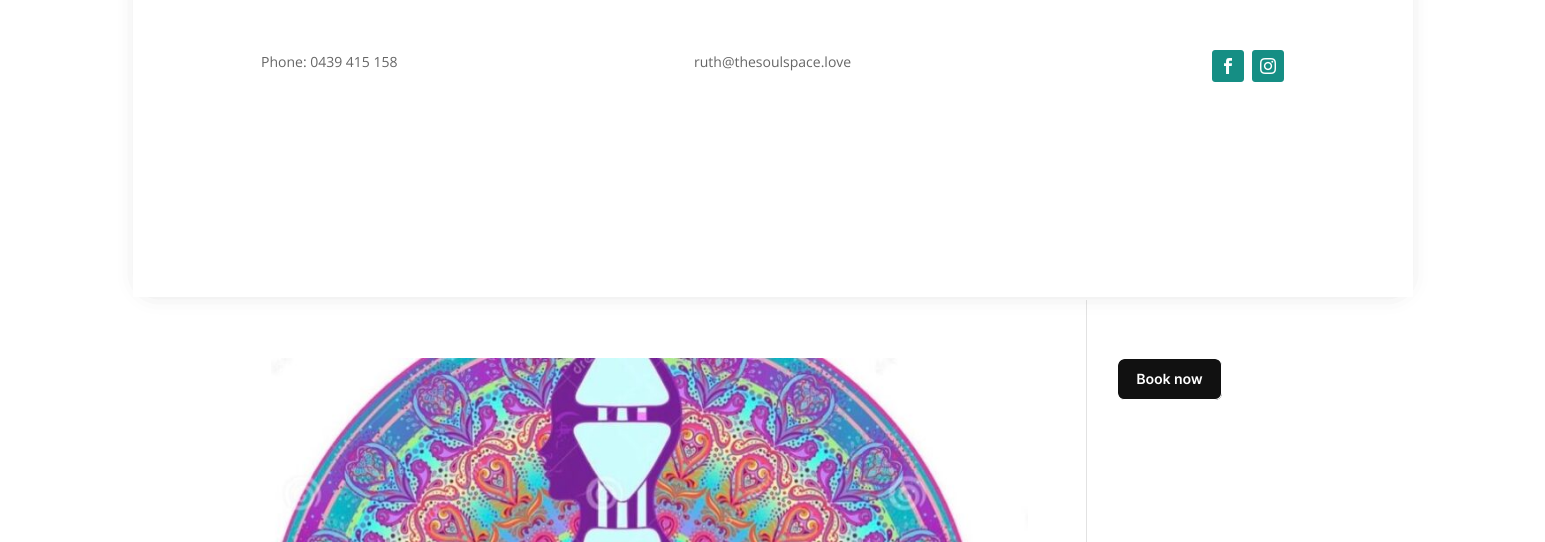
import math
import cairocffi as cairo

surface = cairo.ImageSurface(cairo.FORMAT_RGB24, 1545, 542)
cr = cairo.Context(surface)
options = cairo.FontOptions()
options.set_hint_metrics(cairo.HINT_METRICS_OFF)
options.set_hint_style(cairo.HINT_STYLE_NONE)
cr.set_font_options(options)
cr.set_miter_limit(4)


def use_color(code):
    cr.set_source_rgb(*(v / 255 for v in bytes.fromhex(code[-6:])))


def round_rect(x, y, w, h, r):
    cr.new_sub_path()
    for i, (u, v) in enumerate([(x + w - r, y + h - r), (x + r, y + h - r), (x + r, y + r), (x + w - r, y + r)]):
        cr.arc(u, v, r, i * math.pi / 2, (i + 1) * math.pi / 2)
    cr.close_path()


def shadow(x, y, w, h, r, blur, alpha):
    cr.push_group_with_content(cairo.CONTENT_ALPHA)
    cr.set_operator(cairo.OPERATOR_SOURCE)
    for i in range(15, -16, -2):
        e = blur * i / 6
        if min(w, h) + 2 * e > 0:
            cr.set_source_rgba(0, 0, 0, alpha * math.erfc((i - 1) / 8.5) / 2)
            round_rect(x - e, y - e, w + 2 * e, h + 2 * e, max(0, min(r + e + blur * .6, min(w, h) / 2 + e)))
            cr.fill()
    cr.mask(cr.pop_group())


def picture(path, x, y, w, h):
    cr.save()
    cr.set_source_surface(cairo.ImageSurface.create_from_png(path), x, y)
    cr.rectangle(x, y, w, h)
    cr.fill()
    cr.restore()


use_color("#ffffff")
cr.paint()
use_color("#e2e2e2")
cr.rectangle(1086, 300, 1, 242)
cr.fill()
cr.save()
cr.set_fill_rule(cairo.FILL_RULE_EVEN_ODD)
cr.new_path()
cr.move_to(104, 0)
cr.line_to(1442, 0)
cr.line_to(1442, 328)
cr.line_to(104, 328)
cr.close_path()
cr.move_to(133, -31)
cr.line_to(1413, -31)
cr.line_to(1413, 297)
cr.line_to(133, 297)
cr.close_path()
cr.clip()
use_color("#000000")
shadow(150, -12, 1246, 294, 0, 15, 0.3)
cr.restore()
cr.select_font_face("Open Sans")
cr.set_font_size(14)
use_color("#666666")
cr.move_to(261, 67)
cr.show_text("Phone: 0439 415 158")
cr.move_to(694, 67)
cr.show_text("ruth@thesoulspace.love")
use_color("#158e84")
round_rect(1212, 50, 32, 32, 3)
cr.fill()
picture("img1.png", 1224, 58, 8, 16)
round_rect(1252, 50, 32, 32, 3)
cr.fill()
picture("img2.png", 1260, 58, 16, 16)
picture("img3.png", 271, 358, 757, 184)
picture("img4.png", 1118, 359, 104, 41)
surface.write_to_png("result.png")
